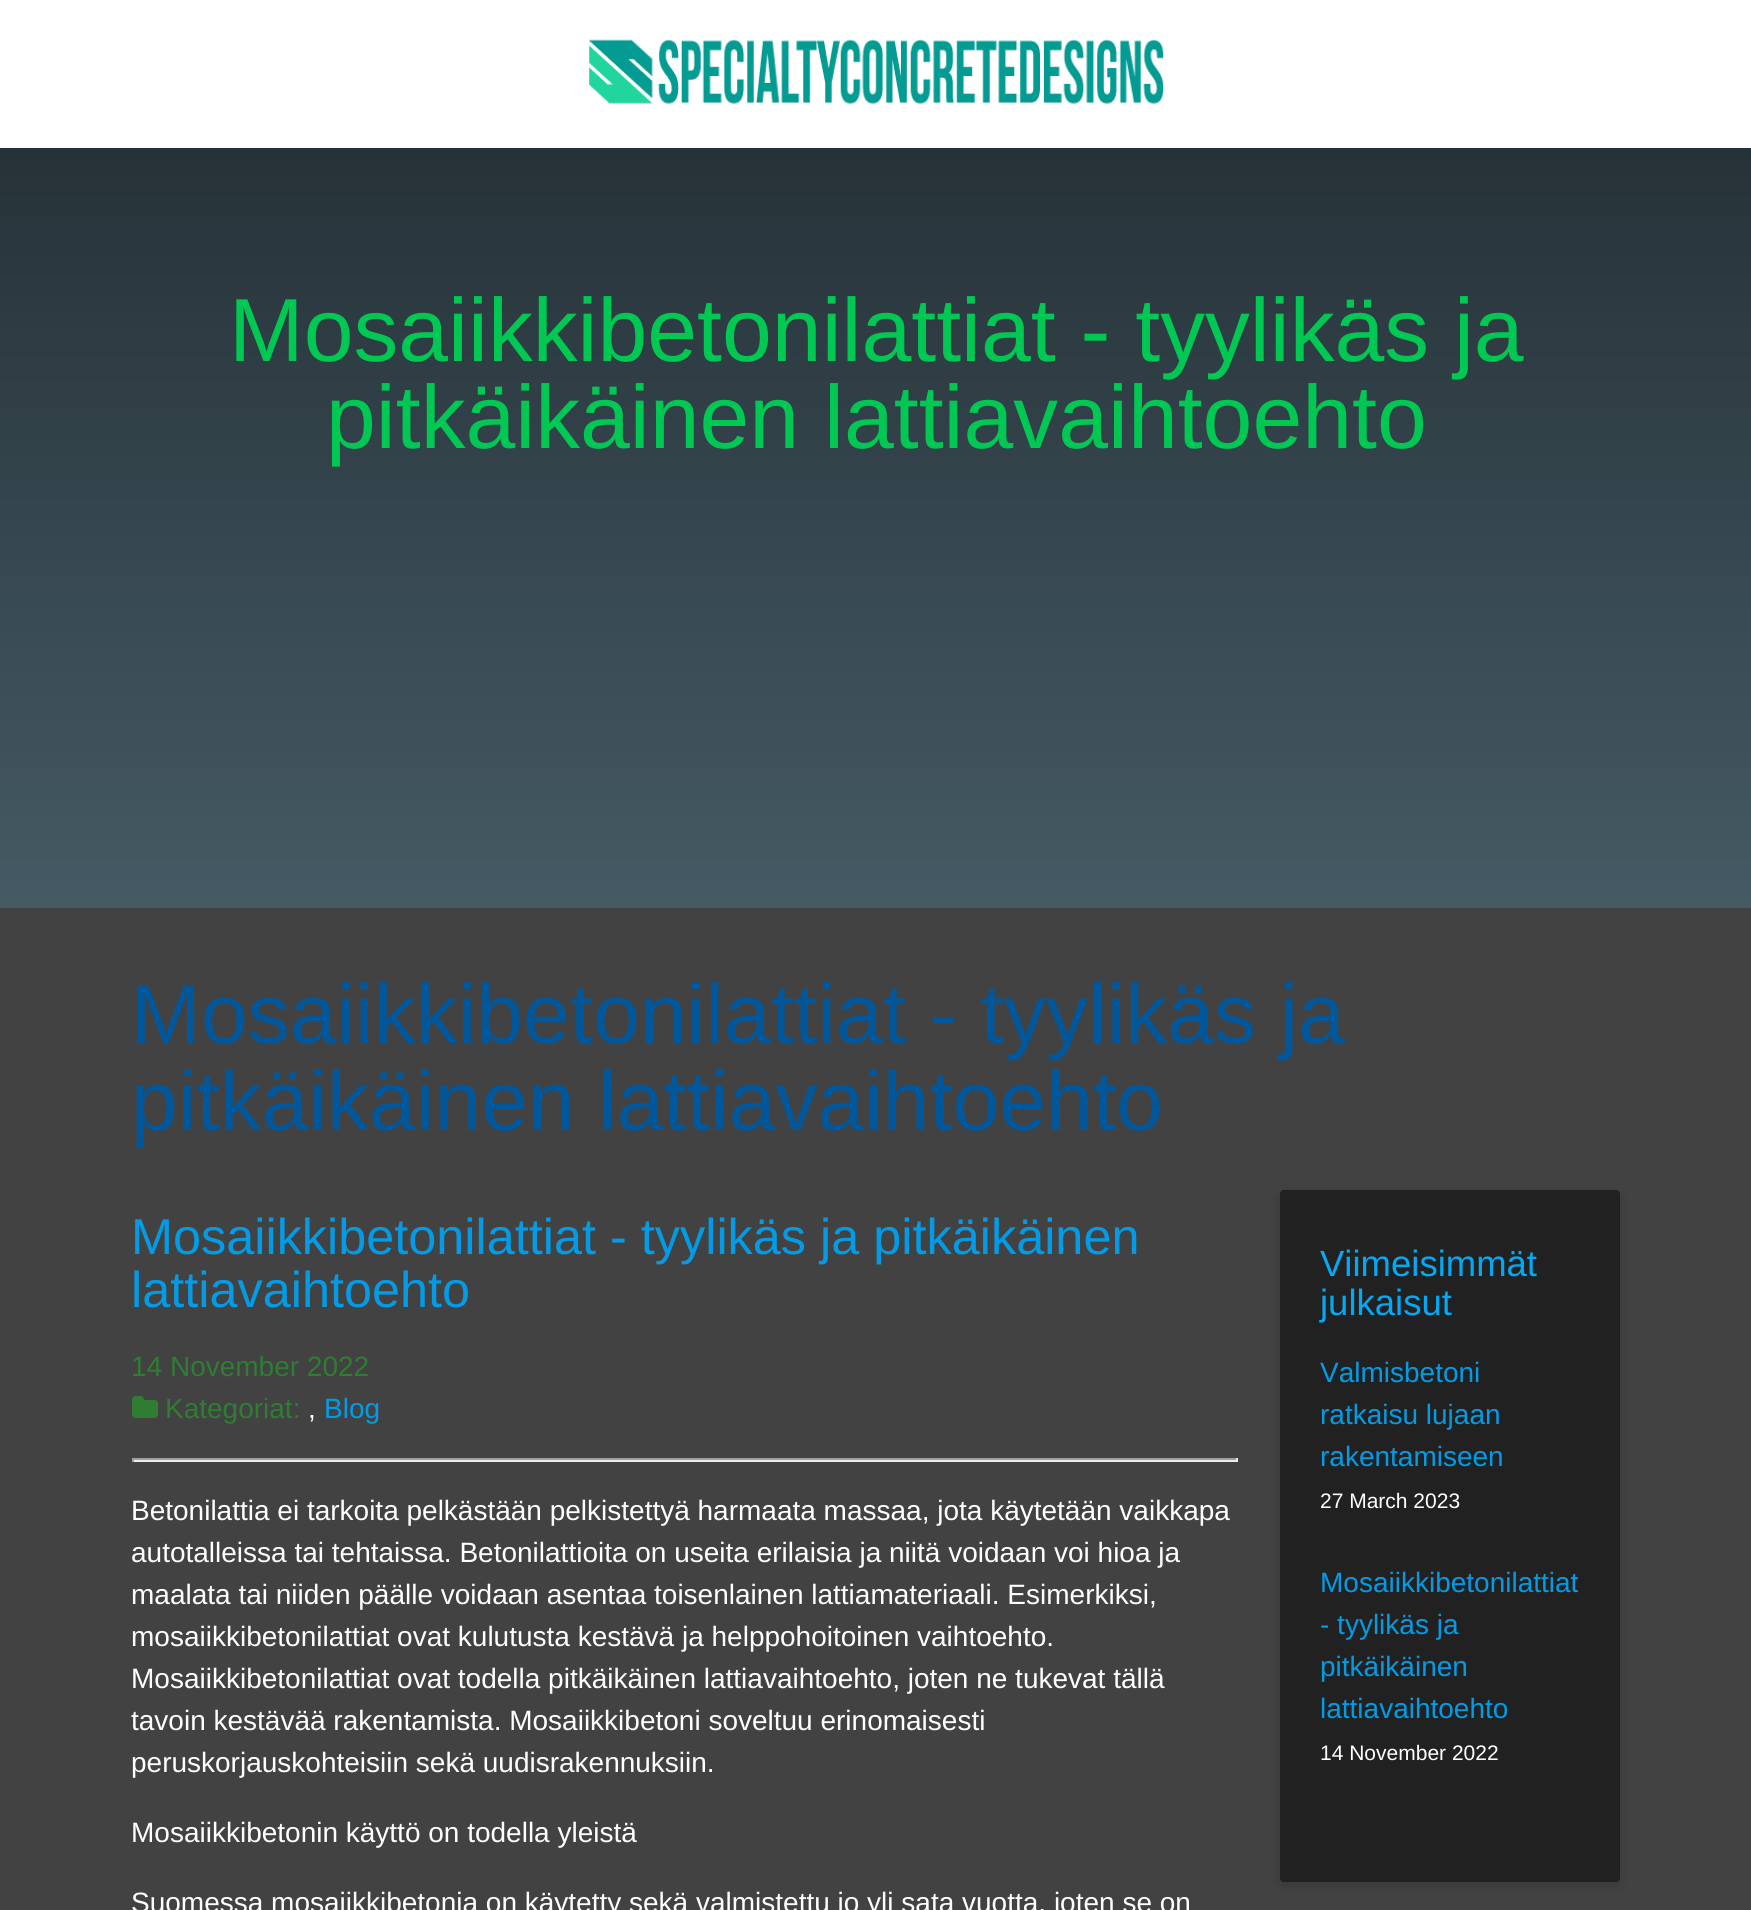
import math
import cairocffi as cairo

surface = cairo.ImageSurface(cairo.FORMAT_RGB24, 1751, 1910)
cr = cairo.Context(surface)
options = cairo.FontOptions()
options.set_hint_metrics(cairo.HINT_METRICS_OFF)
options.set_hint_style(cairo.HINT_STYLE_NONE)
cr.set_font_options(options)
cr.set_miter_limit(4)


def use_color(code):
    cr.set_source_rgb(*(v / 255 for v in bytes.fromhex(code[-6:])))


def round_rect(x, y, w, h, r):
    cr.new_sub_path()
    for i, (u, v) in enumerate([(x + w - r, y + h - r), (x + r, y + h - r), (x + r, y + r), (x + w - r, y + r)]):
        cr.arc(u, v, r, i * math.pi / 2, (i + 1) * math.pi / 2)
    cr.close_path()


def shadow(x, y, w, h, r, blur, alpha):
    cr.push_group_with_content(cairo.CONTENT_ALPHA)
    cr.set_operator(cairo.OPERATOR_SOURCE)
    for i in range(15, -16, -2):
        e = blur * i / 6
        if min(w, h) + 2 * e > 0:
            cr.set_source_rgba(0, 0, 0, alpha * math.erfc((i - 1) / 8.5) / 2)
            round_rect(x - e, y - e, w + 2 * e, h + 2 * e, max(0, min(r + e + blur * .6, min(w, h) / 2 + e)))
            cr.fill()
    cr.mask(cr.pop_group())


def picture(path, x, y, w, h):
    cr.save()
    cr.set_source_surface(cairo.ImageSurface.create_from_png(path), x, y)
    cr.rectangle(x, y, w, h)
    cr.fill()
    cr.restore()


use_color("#ffffff")
cr.paint()
picture("img1.png", 589, 39, 575, 65)
gradient = cairo.LinearGradient(876, 148, 876, 908)
gradient.add_color_stop_rgba(0, 0.149, 0.196, 0.22, 1)
gradient.add_color_stop_rgba(1, 0.271, 0.353, 0.392, 1)
cr.set_source(gradient)
cr.rectangle(0, 148, 1751, 760)
cr.fill()
cr.select_font_face("Liberation Sans")
cr.set_font_size(89.6)
use_color("#00c853")
cr.move_to(229, 361)
cr.show_text("Mosaiikkibetonilattiat - tyylikäs ja")
cr.move_to(326, 448)
cr.show_text("pitkäikäinen lattiavaihtoehto")
use_color("#424242")
cr.rectangle(0, 908, 1751, 1002)
cr.fill()
cr.set_font_size(84)
use_color("#01579b")
cr.move_to(131, 1043)
cr.show_text("Mosaiikkibetonilattiat - tyylikäs ja")
cr.move_to(131, 1130)
cr.show_text("pitkäikäinen lattiavaihtoehto")
cr.set_font_size(50.4)
use_color("#039be5")
cr.move_to(131, 1254)
cr.show_text("Mosaiikkibetonilattiat - tyylikäs ja pitkäikäinen")
cr.move_to(131, 1307)
cr.show_text("lattiavaihtoehto")
cr.set_font_size(28)
use_color("#2e7d32")
cr.move_to(131, 1376)
cr.show_text("14 November 2022")
picture("img2.png", 132, 1396, 26, 22)
cr.move_to(165, 1418)
cr.show_text("Kategoriat:")
use_color("#ffffff")
cr.move_to(308, 1418)
cr.show_text(",")
use_color("#039be5")
cr.move_to(324, 1418)
cr.show_text("Blog")
use_color("#9f9f9f")
cr.rectangle(132, 1458, 1106, 2)
cr.fill()
use_color("#eeeeee")
cr.rectangle(1236, 1458, 2, 4)
cr.fill()
cr.rectangle(132, 1460, 1106, 2)
cr.fill()
use_color("#9f9f9f")
cr.rectangle(132, 1458, 2, 4)
cr.fill()
use_color("#ffffff")
cr.move_to(131, 1520)
cr.show_text("Betonilattia ei tarkoita pelkästään pelkistettyä harmaata massaa, jota käytetään vaikkapa")
cr.move_to(131, 1562)
cr.show_text("autotalleissa tai tehtaissa. Betonilattioita on useita erilaisia ja niitä voidaan voi hioa ja")
cr.move_to(131, 1604)
cr.show_text("maalata tai niiden päälle voidaan asentaa toisenlainen lattiamateriaali. Esimerkiksi,")
cr.move_to(131, 1646)
cr.show_text("mosaiikkibetonilattiat ovat kulutusta kestävä ja helppohoitoinen vaihtoehto.")
cr.move_to(131, 1688)
cr.show_text("Mosaiikkibetonilattiat ovat todella pitkäikäinen lattiavaihtoehto, joten ne tukevat tällä")
cr.move_to(131, 1730)
cr.show_text("tavoin kestävää rakentamista. Mosaiikkibetoni soveltuu erinomaisesti")
cr.move_to(131, 1772)
cr.show_text("peruskorjauskohteisiin sekä uudisrakennuksiin.")
cr.move_to(131, 1842)
cr.show_text("Mosaiikkibetonin käyttö on todella yleistä")
cr.move_to(131, 1912)
cr.show_text("Suomessa mosaiikkibetonia on käytetty sekä valmistettu jo yli sata vuotta, joten se on")
use_color("#000000")
shadow(1280, 1194, 340, 692, 4, 5, 0.16)
use_color("#212121")
round_rect(1280, 1190, 340, 692, 4)
cr.fill()
cr.set_font_size(36.5)
use_color("#03a9f4")
cr.move_to(1320, 1276)
cr.show_text("Viimeisimmät")
cr.move_to(1320, 1315)
cr.show_text("julkaisut")
cr.set_font_size(28)
use_color("#039be5")
cr.move_to(1320, 1382)
cr.show_text("Valmisbetoni")
cr.move_to(1320, 1424)
cr.show_text("ratkaisu lujaan")
cr.move_to(1320, 1466)
cr.show_text("rakentamiseen")
cr.set_font_size(21)
use_color("#ffffff")
cr.move_to(1320, 1508)
cr.show_text("27 March 2023")
cr.set_font_size(28)
use_color("#039be5")
cr.move_to(1320, 1592)
cr.show_text("Mosaiikkibetonilattiat")
cr.move_to(1320, 1634)
cr.show_text("- tyylikäs ja")
cr.move_to(1320, 1676)
cr.show_text("pitkäikäinen")
cr.move_to(1320, 1718)
cr.show_text("lattiavaihtoehto")
cr.set_font_size(21)
use_color("#ffffff")
cr.move_to(1320, 1760)
cr.show_text("14 November 2022")
surface.write_to_png("result.png")
